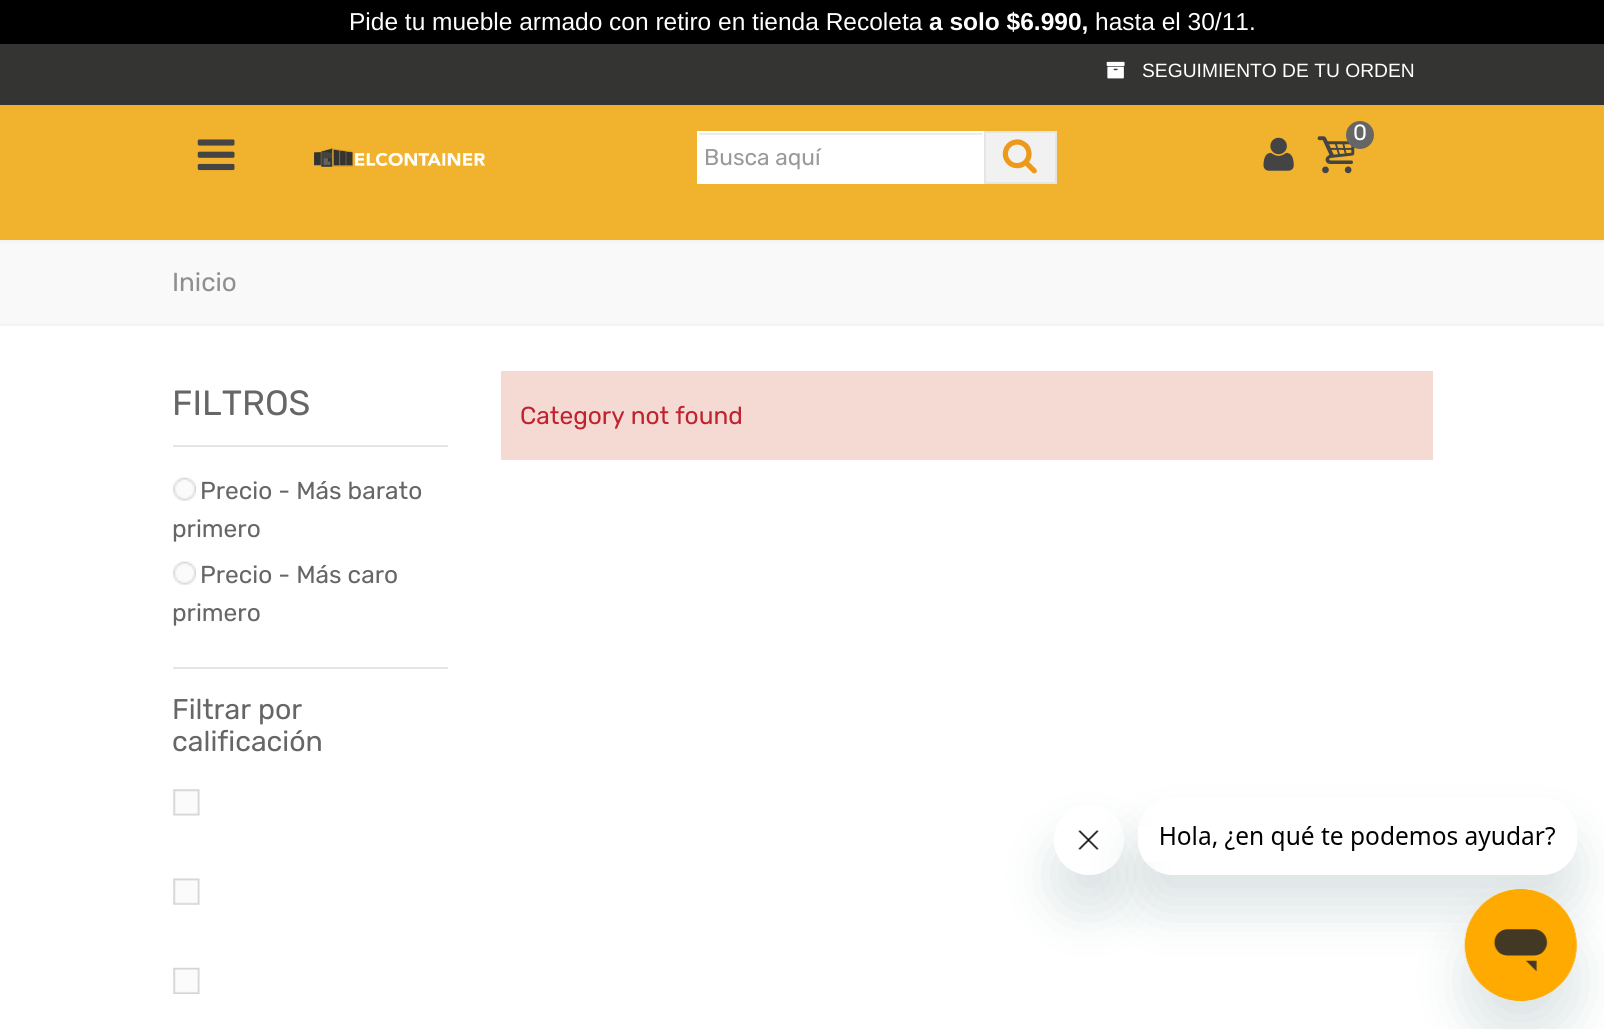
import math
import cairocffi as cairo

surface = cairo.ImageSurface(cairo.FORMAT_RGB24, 1604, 1029)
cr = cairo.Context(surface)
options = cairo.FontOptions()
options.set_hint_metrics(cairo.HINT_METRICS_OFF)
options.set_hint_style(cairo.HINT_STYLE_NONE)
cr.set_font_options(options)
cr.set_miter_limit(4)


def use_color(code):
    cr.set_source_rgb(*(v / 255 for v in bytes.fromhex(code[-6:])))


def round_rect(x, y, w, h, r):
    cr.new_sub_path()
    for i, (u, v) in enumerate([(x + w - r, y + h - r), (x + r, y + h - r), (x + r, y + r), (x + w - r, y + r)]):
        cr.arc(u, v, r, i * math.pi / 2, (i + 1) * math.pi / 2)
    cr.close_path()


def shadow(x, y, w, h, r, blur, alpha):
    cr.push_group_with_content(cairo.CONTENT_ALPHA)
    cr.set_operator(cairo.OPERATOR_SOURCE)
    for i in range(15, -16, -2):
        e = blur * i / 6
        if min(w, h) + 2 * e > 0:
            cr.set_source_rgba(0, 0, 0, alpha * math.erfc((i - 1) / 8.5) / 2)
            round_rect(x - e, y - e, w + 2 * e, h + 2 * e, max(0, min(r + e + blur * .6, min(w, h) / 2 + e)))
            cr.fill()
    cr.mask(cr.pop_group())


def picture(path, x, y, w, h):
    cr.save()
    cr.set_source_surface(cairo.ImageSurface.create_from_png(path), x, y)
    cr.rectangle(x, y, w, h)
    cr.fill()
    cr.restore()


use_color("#ffffff")
cr.paint()
use_color("#f1b32e")
cr.rectangle(0, 105, 1604, 135)
cr.fill()
use_color("#000000")
cr.rectangle(0, 0, 1604, 44)
cr.fill()
cr.select_font_face("Liberation Sans")
cr.set_font_size(24.5)
use_color("#ffffff")
cr.move_to(349, 30)
cr.show_text("Pide tu mueble armado con retiro en tienda Recoleta")
cr.select_font_face("Liberation Sans", cairo.FONT_SLANT_NORMAL, cairo.FONT_WEIGHT_BOLD)
cr.move_to(929, 30)
cr.show_text("a solo $6.990,")
cr.select_font_face("Liberation Sans")
cr.move_to(1095, 30)
cr.show_text("hasta el 30/11.")
use_color("#343533")
cr.rectangle(0, 44, 1604, 61)
cr.fill()
picture("img1.png", 1106, 61, 19, 18)
cr.set_font_size(19.25)
use_color("#ffffff")
cr.move_to(1142, 77)
cr.show_text("SEGUIMIENTO DE TU ORDEN")
picture("img2.png", 1317, 136, 38, 38)
use_color("#666666")
cr.arc(1360, 135, 14, 0, 2 * math.pi)
cr.fill()
cr.select_font_face("Rubik Light")
cr.set_font_size(22)
use_color("#ffffff")
cr.move_to(1353, 140)
cr.show_text("0")
picture("img3.png", 197, 139, 38, 32)
picture("img4.png", 314, 148, 172, 19)
cr.rectangle(699, 135, 283, 47)
cr.fill()
use_color("#ececec")
cr.rectangle(698, 133, 284, 2)
cr.fill()
cr.rectangle(698, 132, 285, 51)
use_color("#ffffff")
cr.stroke()
cr.set_font_size(22.75)
use_color("#999999")
cr.move_to(704, 165)
cr.show_text("Busca aquí")
use_color("#f1f1f1")
cr.rectangle(985, 132, 71, 51)
cr.fill_preserve()
use_color("#e5e5e5")
cr.stroke()
picture("img5.png", 1002, 139, 35, 35)
picture("img6.png", 1263, 137, 31, 34)
gradient = cairo.LinearGradient(802, 326, 802, 240)
gradient.add_color_stop_rgba(0, 0.949, 0.949, 0.949, 1)
gradient.add_color_stop_rgba(0.05, 0.976, 0.976, 0.976, 1)
gradient.add_color_stop_rgba(0.95, 0.976, 0.976, 0.976, 1)
gradient.add_color_stop_rgba(1, 0.949, 0.949, 0.949, 1)
cr.set_source(gradient)
cr.rectangle(0, 240, 1604, 86)
cr.fill()
cr.set_font_size(26)
use_color("#908f8f")
cr.move_to(172, 291)
cr.show_text("Inicio")
cr.set_font_size(35)
use_color("#666666")
cr.move_to(172, 415)
cr.show_text("FILTROS")
use_color("#e5e5e5")
cr.rectangle(173, 445, 275, 2)
cr.fill()
picture("img7.png", 173, 477, 23, 24)
cr.set_font_size(24.5)
use_color("#666666")
cr.move_to(200, 499)
cr.show_text("Precio - Más barato")
cr.move_to(172, 537)
cr.show_text("primero")
picture("img7.png", 173, 561, 23, 24)
cr.move_to(200, 583)
cr.show_text("Precio - Más caro")
cr.move_to(172, 621)
cr.show_text("primero")
use_color("#e5e5e5")
cr.rectangle(173, 667, 275, 2)
cr.fill()
cr.set_font_size(28.5)
use_color("#666666")
cr.move_to(172, 719)
cr.show_text("Filtrar por")
cr.move_to(172, 751)
cr.show_text("calificación")
picture("img8.png", 173, 789, 27, 27)
picture("img9.png", 173, 878, 27, 27)
picture("img10.png", 173, 967, 27, 27)
use_color("#f5dad3")
cr.rectangle(501, 371, 932, 89)
cr.fill()
cr.set_font_size(24.5)
use_color("#c02230")
cr.move_to(520, 424)
cr.show_text("Category not found")
cr.save()
cr.set_fill_rule(cairo.FILL_RULE_EVEN_ODD)
cr.new_path()
cr.move_to(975, 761)
cr.line_to(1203, 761)
cr.line_to(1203, 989)
cr.line_to(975, 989)
cr.close_path()
cr.move_to(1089, 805)
cr.curve_to(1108.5, 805, 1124, 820.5, 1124, 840)
cr.curve_to(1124, 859.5, 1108.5, 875, 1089, 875)
cr.curve_to(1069.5, 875, 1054, 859.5, 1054, 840)
cr.curve_to(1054, 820.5, 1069.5, 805, 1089, 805)
cr.close_path()
cr.clip()
use_color("#17494d")
shadow(1054, 840, 70, 70, 35, 26, 0.15)
cr.restore()
picture("img12.png", 1078, 830, 21, 20)
cr.save()
cr.set_fill_rule(cairo.FILL_RULE_EVEN_ODD)
cr.new_path()
cr.move_to(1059, 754)
cr.line_to(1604, 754)
cr.line_to(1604, 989)
cr.line_to(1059, 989)
cr.close_path()
cr.move_to(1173, 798)
cr.line_to(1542, 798)
cr.curve_to(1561.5, 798, 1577, 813.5, 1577, 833)
cr.line_to(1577, 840)
cr.curve_to(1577, 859.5, 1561.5, 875, 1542, 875)
cr.line_to(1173, 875)
cr.curve_to(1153.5, 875, 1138, 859.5, 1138, 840)
cr.line_to(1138, 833)
cr.curve_to(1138, 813.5, 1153.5, 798, 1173, 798)
cr.close_path()
cr.clip()
use_color("#17494d")
shadow(1138, 833, 439, 77, 35, 26, 0.15)
cr.restore()
picture("img11.png", 1138, 826, 417, 36)
use_color("#17494d")
shadow(1465, 924, 112, 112, 56, 26, 0.15)
picture("img13.png", 1464, 889, 113, 112)
surface.write_to_png("result.png")
